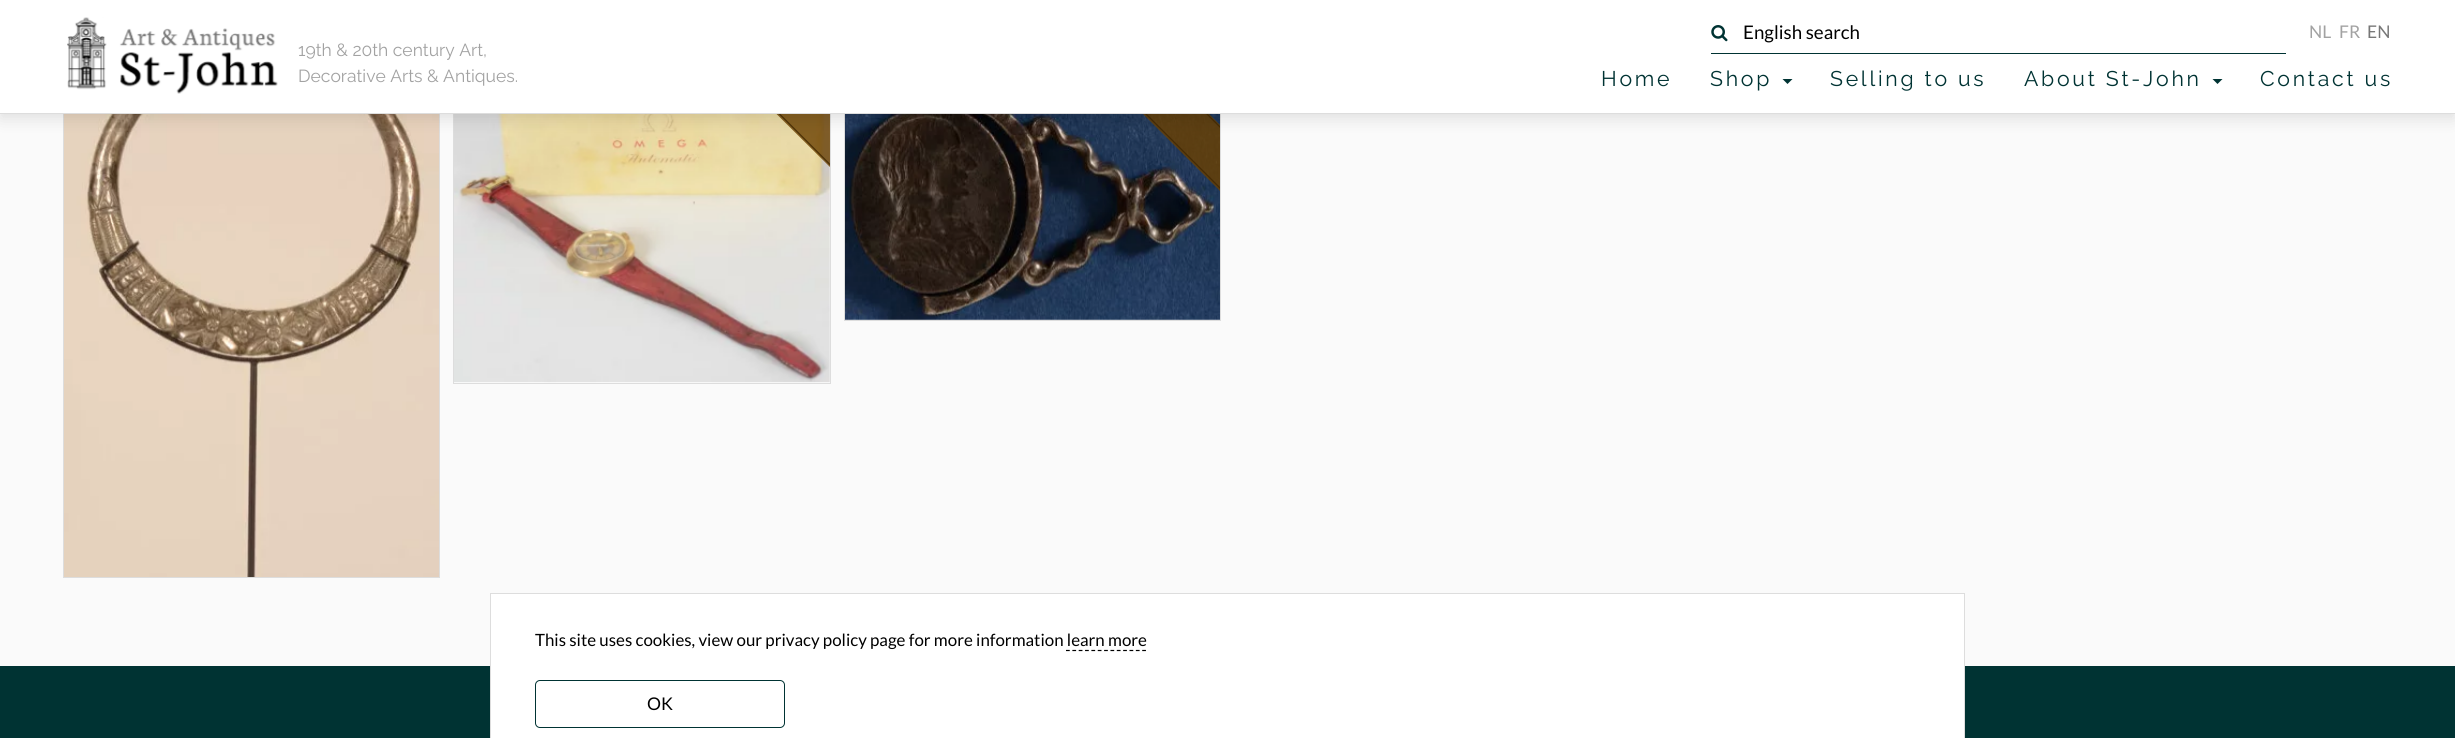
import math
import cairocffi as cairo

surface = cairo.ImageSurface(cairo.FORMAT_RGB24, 2455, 738)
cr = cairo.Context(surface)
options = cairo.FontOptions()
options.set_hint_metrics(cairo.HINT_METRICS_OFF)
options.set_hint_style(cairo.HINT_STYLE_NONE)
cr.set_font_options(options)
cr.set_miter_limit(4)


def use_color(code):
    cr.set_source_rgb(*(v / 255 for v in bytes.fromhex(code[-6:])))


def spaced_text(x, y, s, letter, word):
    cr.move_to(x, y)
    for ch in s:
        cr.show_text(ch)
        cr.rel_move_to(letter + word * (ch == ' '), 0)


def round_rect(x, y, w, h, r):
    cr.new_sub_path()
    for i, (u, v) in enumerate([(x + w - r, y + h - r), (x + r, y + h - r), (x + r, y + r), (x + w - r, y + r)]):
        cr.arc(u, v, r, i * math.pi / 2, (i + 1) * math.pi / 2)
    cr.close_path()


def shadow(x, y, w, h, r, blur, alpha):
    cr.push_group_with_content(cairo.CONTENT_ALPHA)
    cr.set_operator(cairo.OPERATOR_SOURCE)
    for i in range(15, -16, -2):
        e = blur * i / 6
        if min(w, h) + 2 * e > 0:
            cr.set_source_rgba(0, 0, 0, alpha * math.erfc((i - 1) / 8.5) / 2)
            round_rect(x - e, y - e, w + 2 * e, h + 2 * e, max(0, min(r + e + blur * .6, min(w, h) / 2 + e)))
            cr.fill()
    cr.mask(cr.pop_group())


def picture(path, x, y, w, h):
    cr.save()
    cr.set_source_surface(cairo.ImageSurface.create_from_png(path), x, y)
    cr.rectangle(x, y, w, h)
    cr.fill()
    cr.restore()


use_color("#fafafa")
cr.paint()
cr.rectangle(63.5, 15.5, 376, 562)
use_color("#dddddd")
cr.set_line_width(1)
cr.stroke()
picture("img1.png", 64, 114, 375, 463)
use_color("#ffffff")
cr.rectangle(454, 114, 376, 269)
cr.fill()
cr.rectangle(453.5, 50.5, 377, 333)
use_color("#dddddd")
cr.stroke()
picture("img2.png", 454, 114, 376, 269)
cr.save()
cr.rectangle(454, 51, 376, 332)
cr.clip()
cr.set_source_rgba(0.416, 0.251, 0, 0.8)
cr.new_path()
cr.move_to(743, 13)
cr.line_to(871, 142)
cr.line_to(838, 175)
cr.line_to(709, 47)
cr.close_path()
cr.fill()
cr.new_path()
cr.move_to(741.5, 15)
cr.line_to(869, 142.5)
cr.line_to(838.5, 173)
cr.line_to(711, 45.5)
cr.close_path()
cr.set_source_rgba(0.251, 0.153, 0, 0.8)
cr.set_line_width(1.3)
cr.stroke()
cr.restore()
cr.rectangle(844.5, 74.5, 376, 246)
cr.stroke()
picture("img3.png", 845, 114, 375, 206)
cr.save()
cr.rectangle(845, 75, 375, 245)
cr.clip()
cr.set_source_rgba(0.416, 0.251, 0, 0.8)
cr.new_path()
cr.move_to(1133, 38)
cr.line_to(1261, 166)
cr.line_to(1228, 199)
cr.line_to(1100, 71)
cr.close_path()
cr.fill()
cr.new_path()
cr.move_to(1132.5, 39.5)
cr.line_to(1259.5, 166.5)
cr.line_to(1229, 197)
cr.line_to(1102, 70)
cr.close_path()
cr.set_source_rgba(0.251, 0.153, 0, 0.8)
cr.set_line_width(1.3)
cr.stroke()
cr.restore()
use_color("#000000")
shadow(0, 5, 2455, 114, 0, 7.5, 0.1)
use_color("#ffffff")
cr.rectangle(0, 0, 2455, 113)
cr.fill()
use_color("#dddddd")
cr.rectangle(0, 113, 2455, 1)
cr.fill()
picture("img4.png", 67, 17, 211, 77)
use_color("#003333")
cr.rectangle(1711, 53, 575, 1)
cr.fill()
picture("img5.png", 1711, 25, 17, 17)
cr.select_font_face("Lato")
cr.set_font_size(18.75)
use_color("#000000")
cr.move_to(1743, 39)
cr.show_text("English search")
cr.set_font_size(17.5)
use_color("#a2a2a2")
cr.move_to(2309, 38)
cr.show_text("NL")
cr.move_to(2339, 38)
cr.show_text("FR")
use_color("#777777")
cr.move_to(2367, 38)
cr.show_text("EN")
cr.select_font_face("Raleway Thin")
use_color("#a2a2a2")
cr.move_to(298, 56)
cr.show_text("19th & 20th century Art,")
cr.move_to(298, 82)
cr.show_text("Decorative Arts & Antiques.")
cr.set_font_size(21.25)
use_color("#003333")
spaced_text(1601, 86, "Home", 2.75, 0)
spaced_text(1710, 86, "Shop", 2.75, 0)
cr.new_path()
cr.move_to(1782.5, 79)
cr.line_to(1792.5, 79)
cr.line_to(1787.5, 84)
cr.close_path()
cr.fill()
spaced_text(1830, 86, "Selling to us", 2.75, 0)
spaced_text(2024, 86, "About St-John", 2.75, 0)
cr.new_path()
cr.move_to(2212.5, 79)
cr.line_to(2222.5, 79)
cr.line_to(2217.5, 84)
cr.close_path()
cr.fill()
spaced_text(2260, 86, "Contact us", 2.75, 0)
cr.rectangle(0, 666, 2455, 72)
cr.fill()
use_color("#ffffff")
cr.rectangle(490.5, 593.5, 1474, 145)
cr.fill_preserve()
use_color("#dddddd")
cr.stroke()
cr.select_font_face("Lato")
cr.set_font_size(16.9)
use_color("#000000")
cr.move_to(535, 646)
cr.show_text("This site uses cookies, view our privacy policy page for more information learn more")
cr.new_path()
cr.move_to(1066, 650.5)
cr.line_to(1146, 650.5)
cr.set_line_width(1.2)
cr.set_dash([3.75, 2.6])
cr.stroke()
round_rect(535.5, 680.5, 249, 47, 4.5)
use_color("#003333")
cr.set_line_width(1)
cr.set_dash([])
cr.stroke()
cr.set_font_size(17.5)
use_color("#000000")
cr.move_to(647, 710)
cr.show_text("OK")
surface.write_to_png("result.png")
